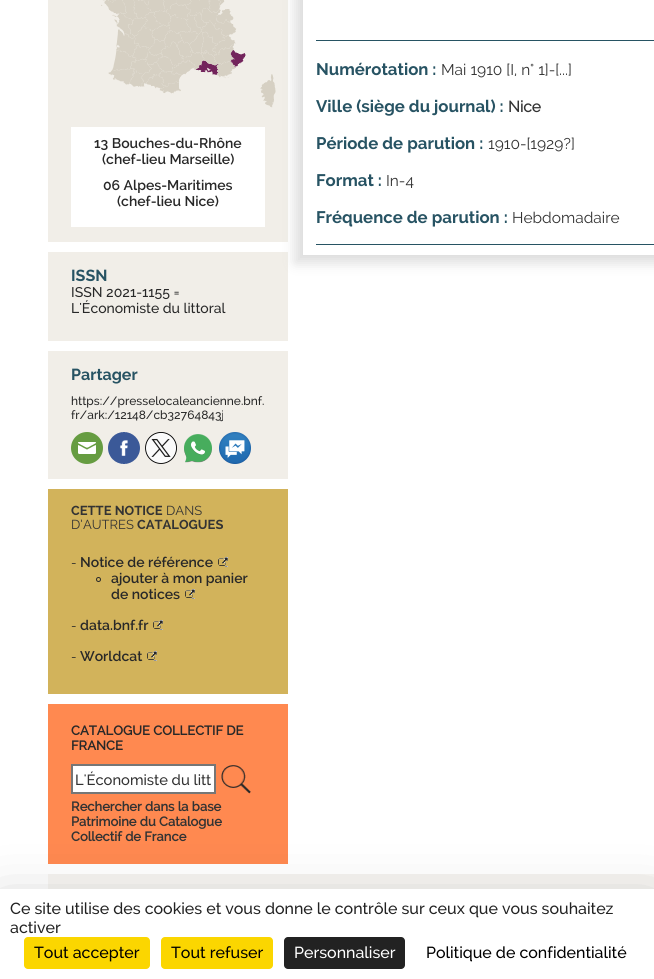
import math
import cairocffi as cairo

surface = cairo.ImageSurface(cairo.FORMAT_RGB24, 654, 979)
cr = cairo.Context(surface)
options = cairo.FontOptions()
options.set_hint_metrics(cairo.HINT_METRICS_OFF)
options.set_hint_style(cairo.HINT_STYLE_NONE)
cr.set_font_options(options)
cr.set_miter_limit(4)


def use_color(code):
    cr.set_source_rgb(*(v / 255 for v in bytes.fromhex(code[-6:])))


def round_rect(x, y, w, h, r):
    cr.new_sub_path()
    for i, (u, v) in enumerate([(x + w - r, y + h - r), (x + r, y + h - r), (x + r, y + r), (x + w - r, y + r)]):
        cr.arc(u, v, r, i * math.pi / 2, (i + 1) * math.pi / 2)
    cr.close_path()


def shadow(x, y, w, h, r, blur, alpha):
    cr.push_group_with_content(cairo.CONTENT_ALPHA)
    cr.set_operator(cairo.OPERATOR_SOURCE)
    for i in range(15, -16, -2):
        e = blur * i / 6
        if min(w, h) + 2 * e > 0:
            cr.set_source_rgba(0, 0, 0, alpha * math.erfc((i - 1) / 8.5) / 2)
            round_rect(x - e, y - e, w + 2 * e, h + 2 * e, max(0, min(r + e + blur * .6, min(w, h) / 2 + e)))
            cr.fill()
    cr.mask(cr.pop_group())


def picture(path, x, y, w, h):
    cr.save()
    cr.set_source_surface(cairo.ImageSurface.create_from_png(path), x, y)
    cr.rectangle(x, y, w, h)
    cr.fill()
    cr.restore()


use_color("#ffffff")
cr.paint()
use_color("#f1eee8")
cr.rectangle(48, 0, 240, 242)
cr.fill()
picture("img1.png", 101, 0, 175, 108)
use_color("#ffffff")
cr.rectangle(71, 127, 194, 100)
cr.fill()
cr.select_font_face("Raleway SemiBold")
cr.set_font_size(14)
use_color("#282828")
cr.move_to(94, 148)
cr.show_text("13 Bouches-du-Rhône")
cr.move_to(102, 164)
cr.show_text("(chef-lieu Marseille)")
cr.move_to(103, 190)
cr.show_text("06 Alpes-Maritimes")
cr.move_to(117, 206)
cr.show_text("(chef-lieu Nice)")
use_color("#f1eee8")
cr.rectangle(48, 252, 240, 89)
cr.fill()
cr.select_font_face("Raleway", cairo.FONT_SLANT_NORMAL, cairo.FONT_WEIGHT_BOLD)
cr.set_font_size(16)
use_color("#275363")
cr.move_to(71, 281)
cr.show_text("ISSN")
cr.select_font_face("Raleway Medium")
cr.set_font_size(14)
use_color("#282828")
cr.move_to(71, 297)
cr.show_text("ISSN 2021-1155 =")
cr.move_to(71, 313)
cr.show_text("L'Économiste du littoral")
use_color("#f1eee8")
cr.rectangle(48, 351, 240, 128)
cr.fill()
cr.select_font_face("Raleway", cairo.FONT_SLANT_NORMAL, cairo.FONT_WEIGHT_BOLD)
cr.set_font_size(16)
use_color("#275363")
cr.move_to(71, 380)
cr.show_text("Partager")
cr.select_font_face("Raleway Medium")
cr.set_font_size(12)
use_color("#282828")
cr.move_to(71, 405)
cr.show_text("https://presselocaleancienne.bnf.")
cr.move_to(71, 419)
cr.show_text("fr/ark:/12148/cb32764843j")
picture("img2.png", 71, 432, 32, 32)
picture("img3.png", 108, 432, 32, 32)
picture("img4.png", 145, 432, 32, 32)
picture("img5.png", 184, 434, 28, 29)
picture("img6.png", 219, 432, 32, 32)
use_color("#d2b35b")
cr.rectangle(48, 489, 240, 205)
cr.fill()
cr.select_font_face("Raleway", cairo.FONT_SLANT_NORMAL, cairo.FONT_WEIGHT_BOLD)
cr.set_font_size(13)
use_color("#333333")
cr.move_to(71, 515)
cr.show_text("CETTE NOTICE")
cr.select_font_face("Raleway")
cr.move_to(166, 515)
cr.show_text("DANS")
cr.move_to(71, 529)
cr.show_text("D’AUTRES")
cr.select_font_face("Raleway", cairo.FONT_SLANT_NORMAL, cairo.FONT_WEIGHT_BOLD)
cr.move_to(137, 529)
cr.show_text("CATALOGUES")
cr.select_font_face("Raleway")
use_color("#282828")
cr.move_to(71, 567)
cr.show_text("-")
cr.select_font_face("Raleway SemiBold")
cr.set_font_size(14)
cr.move_to(80, 567)
cr.show_text("Notice de référence")
picture("img7.png", 218, 557, 10, 10)
cr.arc(98.5, 579.5, 2, 0, 2 * math.pi)
cr.set_line_width(1)
cr.stroke()
cr.move_to(111, 583)
cr.show_text("ajouter à mon panier")
cr.move_to(111, 599)
cr.show_text("de notices")
picture("img7.png", 185, 589, 10, 10)
cr.select_font_face("Raleway")
cr.set_font_size(13)
cr.move_to(71, 630)
cr.show_text("-")
cr.select_font_face("Raleway SemiBold")
cr.set_font_size(14)
cr.move_to(80, 630)
cr.show_text("data.bnf.fr")
picture("img7.png", 153, 620, 10, 10)
cr.select_font_face("Raleway")
cr.set_font_size(13)
cr.move_to(71, 661)
cr.show_text("-")
cr.select_font_face("Raleway SemiBold")
cr.set_font_size(14)
cr.move_to(80, 661)
cr.show_text("Worldcat")
picture("img7.png", 147, 651, 10, 10)
use_color("#ff8950")
cr.rectangle(48, 704, 240, 160)
cr.fill()
cr.select_font_face("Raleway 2", cairo.FONT_SLANT_NORMAL, cairo.FONT_WEIGHT_BOLD)
cr.set_font_size(13)
use_color("#282828")
cr.move_to(71, 735)
cr.show_text("CATALOGUE COLLECTIF DE")
cr.move_to(71, 750)
cr.show_text("FRANCE")
use_color("#ffffff")
cr.rectangle(72, 765, 143, 28)
cr.fill_preserve()
use_color("#767676")
cr.set_line_width(2)
cr.stroke()
cr.select_font_face("Raleway Medium")
cr.set_font_size(14.75)
use_color("#333333")
cr.move_to(75, 785)
cr.show_text("L'Économiste du litt")
picture("img8.png", 221, 765, 30, 29)
cr.select_font_face("Raleway 2", cairo.FONT_SLANT_NORMAL, cairo.FONT_WEIGHT_BOLD)
cr.set_font_size(13)
cr.move_to(71, 811)
cr.show_text("Rechercher dans la base")
cr.move_to(71, 826)
cr.show_text("Patrimoine du Catalogue")
cr.move_to(71, 841)
cr.show_text("Collectif de France")
cr.save()
cr.set_fill_rule(cairo.FILL_RULE_EVEN_ODD)
cr.new_path()
cr.move_to(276, 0)
cr.line_to(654, 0)
cr.line_to(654, 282)
cr.line_to(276, 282)
cr.close_path()
cr.move_to(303, -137)
cr.line_to(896, -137)
cr.line_to(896, 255)
cr.line_to(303, 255)
cr.close_path()
cr.clip()
use_color("#dddddd")
shadow(295, -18, 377, 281, 0, 6, 1)
cr.restore()
use_color("#275363")
cr.rectangle(316, 40, 338, 1)
cr.fill()
cr.rectangle(316, 244, 338, 1)
cr.fill()
cr.select_font_face("Raleway", cairo.FONT_SLANT_NORMAL, cairo.FONT_WEIGHT_BOLD)
cr.set_font_size(16.75)
cr.move_to(316, 75)
cr.show_text("Numérotation :")
cr.select_font_face("Raleway")
cr.set_font_size(15.5)
use_color("#333333")
cr.move_to(441, 75)
cr.show_text("Mai 1910 [I, n° 1]-[...]")
cr.select_font_face("Raleway", cairo.FONT_SLANT_NORMAL, cairo.FONT_WEIGHT_BOLD)
cr.set_font_size(16.75)
use_color("#275363")
cr.move_to(316, 112)
cr.show_text("Ville (siège du journal) :")
cr.select_font_face("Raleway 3", cairo.FONT_SLANT_NORMAL, cairo.FONT_WEIGHT_BOLD)
cr.set_font_size(15.5)
use_color("#333333")
cr.move_to(508, 112)
cr.show_text("Nice")
cr.select_font_face("Raleway", cairo.FONT_SLANT_NORMAL, cairo.FONT_WEIGHT_BOLD)
cr.set_font_size(16.75)
use_color("#275363")
cr.move_to(316, 149)
cr.show_text("Période de parution :")
cr.select_font_face("Raleway")
cr.set_font_size(15.5)
use_color("#333333")
cr.move_to(488, 149)
cr.show_text("1910-[1929?]")
cr.select_font_face("Raleway", cairo.FONT_SLANT_NORMAL, cairo.FONT_WEIGHT_BOLD)
cr.set_font_size(16.75)
use_color("#275363")
cr.move_to(316, 186)
cr.show_text("Format :")
cr.select_font_face("Raleway")
cr.set_font_size(15.5)
use_color("#333333")
cr.move_to(386, 186)
cr.show_text("In-4")
cr.select_font_face("Raleway", cairo.FONT_SLANT_NORMAL, cairo.FONT_WEIGHT_BOLD)
cr.set_font_size(16.75)
use_color("#275363")
cr.move_to(316, 223)
cr.show_text("Fréquence de parution :")
cr.select_font_face("Raleway")
cr.set_font_size(15.5)
use_color("#333333")
cr.move_to(512, 223)
cr.show_text("Hebdomadaire")
use_color("#f8f6f3")
cr.rectangle(48, 874, 606, 15)
cr.fill()
use_color("#000000")
shadow(0, 909, 654, 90, 0, 30, 0.25)
use_color("#ffffff")
cr.rectangle(0, 889, 654, 90)
cr.fill()
cr.select_font_face("Raleway Medium")
cr.set_font_size(16)
use_color("#222222")
cr.move_to(10, 914)
cr.show_text("Ce site utilise des cookies et vous donne le contrôle sur ceux que vous souhaitez")
cr.move_to(10, 933)
cr.show_text("activer")
use_color("#fbd600")
round_rect(24, 937, 126, 32, 4)
cr.fill()
use_color("#000000")
cr.move_to(34, 958)
cr.show_text("Tout accepter")
use_color("#fbd600")
round_rect(161, 937, 112, 32, 4)
cr.fill()
use_color("#000000")
cr.move_to(171, 958)
cr.show_text("Tout refuser")
use_color("#222222")
round_rect(284, 937, 121, 32, 4)
cr.fill()
use_color("#ffffff")
cr.move_to(294, 958)
cr.show_text("Personnaliser")
use_color("#000000")
cr.move_to(426, 958)
cr.show_text("Politique de confidentialité")
surface.write_to_png("result.png")
